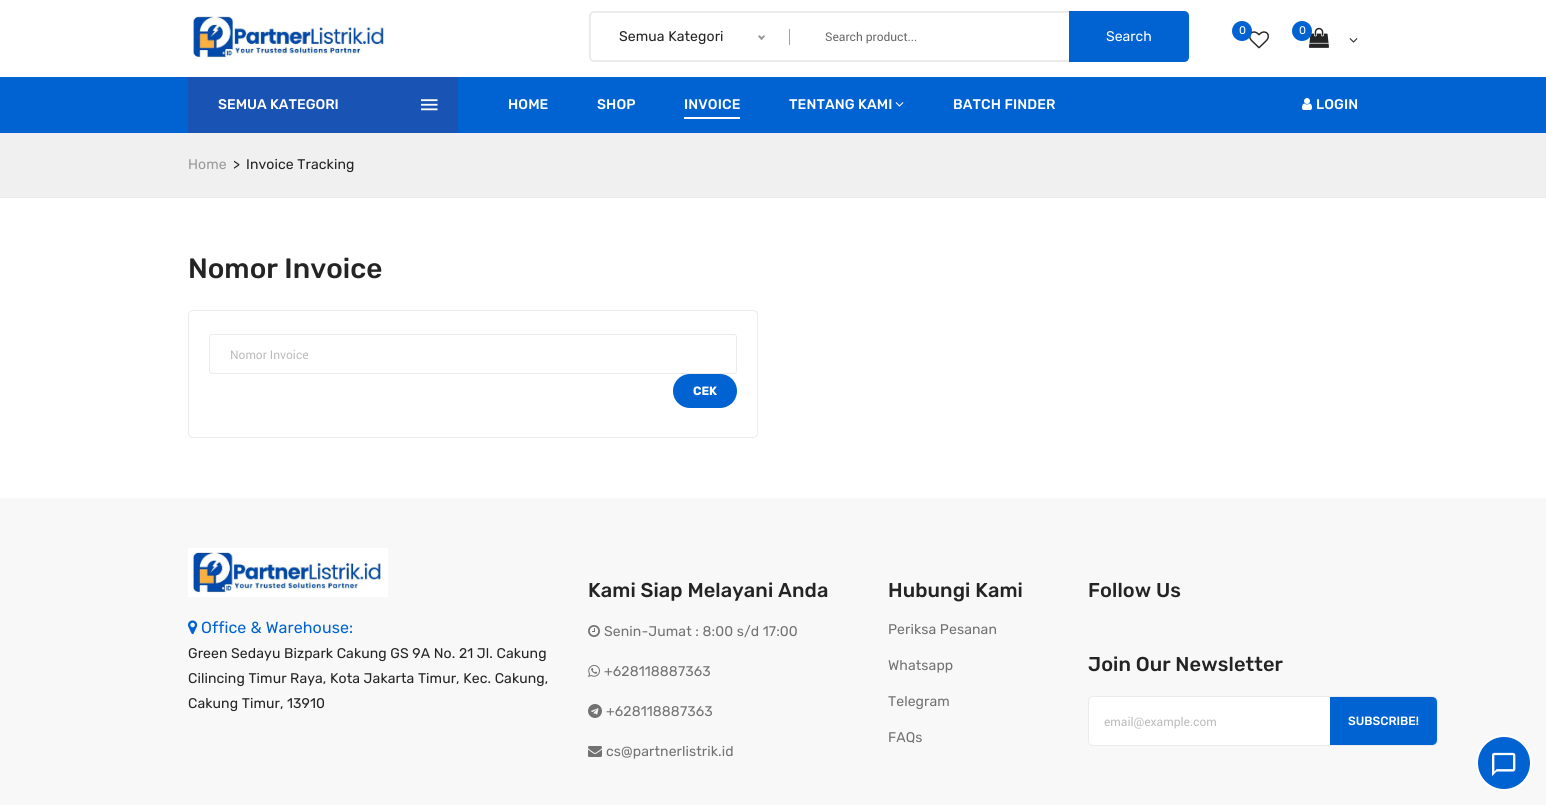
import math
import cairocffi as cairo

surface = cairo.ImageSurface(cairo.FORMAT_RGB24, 1546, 805)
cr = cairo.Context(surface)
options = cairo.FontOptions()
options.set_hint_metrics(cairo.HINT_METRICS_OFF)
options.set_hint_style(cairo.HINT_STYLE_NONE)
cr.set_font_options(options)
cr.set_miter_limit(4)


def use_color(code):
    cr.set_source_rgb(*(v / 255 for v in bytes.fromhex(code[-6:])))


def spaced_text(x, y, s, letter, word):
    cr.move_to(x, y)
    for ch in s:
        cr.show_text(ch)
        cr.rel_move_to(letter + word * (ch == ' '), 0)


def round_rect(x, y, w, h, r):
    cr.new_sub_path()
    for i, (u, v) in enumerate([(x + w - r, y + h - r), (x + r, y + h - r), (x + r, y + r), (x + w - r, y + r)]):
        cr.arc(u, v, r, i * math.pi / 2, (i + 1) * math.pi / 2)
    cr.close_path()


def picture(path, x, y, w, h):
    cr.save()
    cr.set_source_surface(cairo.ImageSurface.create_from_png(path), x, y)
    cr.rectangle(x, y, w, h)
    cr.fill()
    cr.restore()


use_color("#ffffff")
cr.paint()
picture("img1.png", 192, 16, 192, 43)
round_rect(590, 12, 598, 49, 4)
use_color("#ebebeb")
cr.stroke()
cr.select_font_face("Rubik")
cr.set_font_size(14)
use_color("#242424")
spaced_text(619, 41, "Semua Kategori", 0.1, 0)
use_color("#999999")
cr.new_path()
cr.move_to(764, 35)
cr.line_to(765, 36.5)
cr.line_to(761.5, 40)
cr.line_to(760, 38.5)
cr.close_path()
cr.fill()
cr.new_path()
cr.move_to(759.5, 35)
cr.line_to(763, 38.5)
cr.line_to(761.5, 40)
cr.line_to(758, 36.5)
cr.close_path()
cr.fill()
use_color("#a1a1a1")
cr.rectangle(789, 29, 1, 16)
cr.fill()
cr.select_font_face("Roboto")
cr.set_font_size(12)
use_color("#666666")
cr.move_to(825, 41)
cr.show_text("Search product...")
use_color("#0063d1")
cr.new_path()
cr.move_to(1069, 11)
cr.line_to(1184, 11)
cr.curve_to(1187, 11, 1189, 13, 1189, 16)
cr.line_to(1189, 57)
cr.curve_to(1189, 60, 1187, 62, 1184, 62)
cr.line_to(1069, 62)
cr.close_path()
cr.fill()
cr.select_font_face("Rubik")
cr.set_font_size(14)
use_color("#ffffff")
cr.move_to(1106, 41)
cr.show_text("Search")
picture("img2.png", 1249, 31, 20, 18)
use_color("#0063d1")
cr.arc(1242, 31, 10, 0, 2 * math.pi)
cr.fill()
cr.set_font_size(11)
use_color("#ffffff")
spaced_text(1239, 34, "0", 0.1, 0)
picture("img3.png", 1309, 27, 20, 21)
use_color("#0063d1")
cr.arc(1302, 31, 10, 0, 2 * math.pi)
cr.fill()
use_color("#ffffff")
spaced_text(1299, 34, "0", 0.1, 0)
picture("img4.png", 1349, 38, 9, 5)
use_color("#0063d1")
cr.rectangle(0, 77, 1546, 56)
cr.fill()
use_color("#1953b4")
cr.rectangle(188, 77, 270, 56)
cr.fill()
cr.select_font_face("Rubik Medium")
cr.set_font_size(14)
use_color("#ffffff")
cr.move_to(218, 109)
cr.show_text("SEMUA KATEGORI")
picture("img5.png", 421, 99, 17, 12)
spaced_text(508, 109, "HOME", 0.1, 0)
spaced_text(597, 109, "SHOP", 0.1, 0)
spaced_text(684, 109, "INVOICE", 0.1, 0)
cr.rectangle(684, 117, 56, 2)
cr.fill()
spaced_text(789, 109, "TENTANG KAMI", 0.1, 0)
picture("img6.png", 895, 102, 9, 5)
spaced_text(953, 109, "BATCH FINDER", 0.1, 0)
picture("img7.png", 1302, 98, 10, 12)
spaced_text(1316, 109, "LOGIN", 0.1, 0)
use_color("#f0f0f0")
cr.rectangle(0, 133, 1546, 64)
cr.fill()
use_color("#ebebeb")
cr.rectangle(0, 197, 1546, 1)
cr.fill()
cr.select_font_face("Rubik")
use_color("#999999")
spaced_text(188, 169, "Home", 0.1, 0)
use_color("#242424")
spaced_text(233, 169, ">", 0.1, 0)
spaced_text(246, 169, "Invoice Tracking", 0.1, 0)
cr.select_font_face("Rubik Medium")
cr.set_font_size(28)
cr.move_to(188, 278)
cr.show_text("Nomor Invoice")
round_rect(188.5, 310.5, 569, 127, 4.5)
use_color("#ebebeb")
cr.set_line_width(1)
cr.stroke()
round_rect(209.5, 334.5, 527, 39, 2.5)
cr.stroke()
cr.select_font_face("Roboto")
cr.set_font_size(12)
use_color("#bbbbbb")
cr.move_to(230, 359)
cr.show_text("Nomor Invoice")
use_color("#0063d1")
round_rect(673, 374, 64, 34, 17)
cr.fill()
cr.select_font_face("Rubik", cairo.FONT_SLANT_NORMAL, cairo.FONT_WEIGHT_BOLD)
use_color("#ffffff")
cr.move_to(693, 395)
cr.show_text("CEK")
use_color("#f8f8f8")
cr.rectangle(0, 498, 1546, 307)
cr.fill()
picture("img8.png", 188, 548, 200, 49)
picture("img9.png", 188, 620, 10, 15)
cr.select_font_face("Rubik")
cr.set_font_size(16)
use_color("#0063d1")
spaced_text(201, 633, "Office & Warehouse:", 0.1, 0)
cr.set_font_size(14)
use_color("#242424")
spaced_text(188, 658, "Green Sedayu Bizpark Cakung GS 9A No. 21 Jl. Cakung", 0.1, 0)
spaced_text(188, 683, "Cilincing Timur Raya, Kota Jakarta Timur, Kec. Cakung,", 0.1, 0)
spaced_text(188, 708, "Cakung Timur, 13910", 0.1, 0)
cr.select_font_face("Rubik Medium")
cr.set_font_size(20)
spaced_text(588, 597, "Kami Siap Melayani Anda", 0.1, 0)
picture("img10.png", 588, 625, 12, 12)
cr.select_font_face("Rubik")
cr.set_font_size(14)
use_color("#727272")
spaced_text(604, 636, "Senin-Jumat : 8:00 s/d 17:00", 0.1, 0)
picture("img11.png", 588, 665, 12, 12)
spaced_text(604, 676, "+628118887363", 0.1, 0)
picture("img12.png", 588, 704, 14, 14)
spaced_text(606, 716, "+628118887363", 0.1, 0)
picture("img13.png", 588, 746, 14, 11)
spaced_text(606, 756, "cs@partnerlistrik.id", 0.1, 0)
cr.select_font_face("Rubik Medium")
cr.set_font_size(20)
use_color("#242424")
spaced_text(888, 597, "Hubungi Kami", 0.1, 0)
cr.select_font_face("Rubik")
cr.set_font_size(14)
use_color("#727272")
spaced_text(888, 634, "Periksa Pesanan", 0.1, 0)
spaced_text(888, 670, "Whatsapp", 0.1, 0)
spaced_text(888, 706, "Telegram", 0.1, 0)
spaced_text(888, 742, "FAQs", 0.1, 0)
cr.select_font_face("Rubik Medium")
cr.set_font_size(20)
use_color("#242424")
spaced_text(1088, 597, "Follow Us", 0.1, 0)
spaced_text(1088, 671, "Join Our Newsletter", 0.1, 0)
use_color("#ffffff")
round_rect(1088.5, 696.5, 349, 49, 4.5)
cr.fill_preserve()
use_color("#ebebeb")
cr.stroke()
cr.select_font_face("Roboto")
cr.set_font_size(12)
use_color("#bbbbbb")
cr.move_to(1104, 726)
cr.show_text("email@example.com")
use_color("#0063d1")
cr.new_path()
cr.move_to(1330, 697)
cr.line_to(1432, 697)
cr.curve_to(1435, 697, 1437, 699, 1437, 702)
cr.line_to(1437, 740)
cr.curve_to(1437, 743, 1435, 745, 1432, 745)
cr.line_to(1330, 745)
cr.close_path()
cr.fill()
cr.select_font_face("Rubik Medium")
use_color("#ffffff")
cr.move_to(1348, 725)
cr.show_text("SUBSCRIBE!")
use_color("#0063d1")
cr.new_path()
cr.arc(1504, 763, 27, 0, 2 * math.pi)
cr.fill_preserve()
use_color("#ffffff")
cr.set_line_width(2)
cr.stroke()
picture("img14.png", 1492, 752, 24, 24)
surface.write_to_png("result.png")
